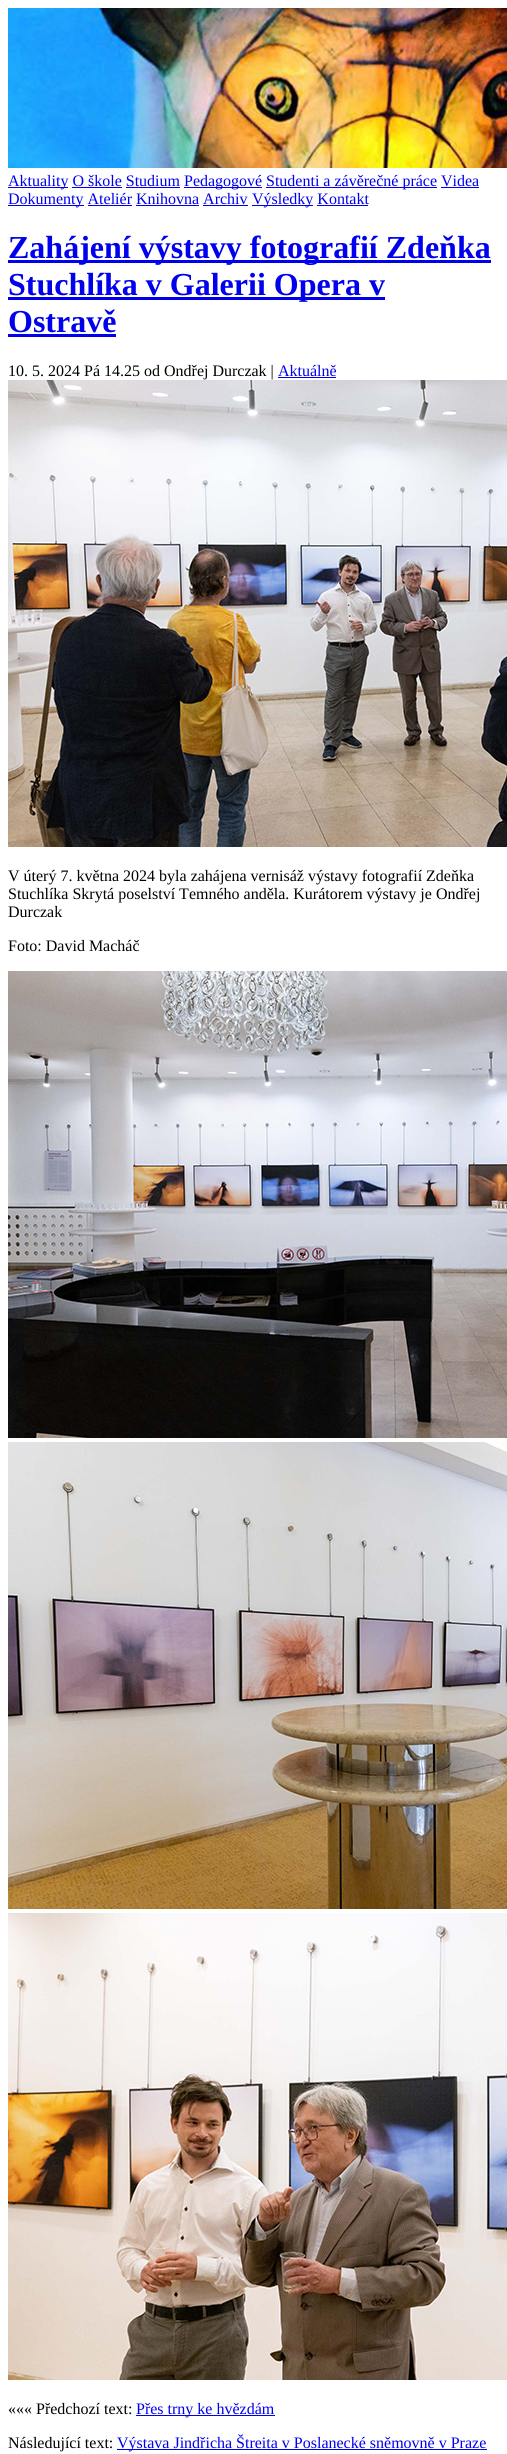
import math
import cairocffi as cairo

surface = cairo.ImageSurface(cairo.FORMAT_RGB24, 507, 2454)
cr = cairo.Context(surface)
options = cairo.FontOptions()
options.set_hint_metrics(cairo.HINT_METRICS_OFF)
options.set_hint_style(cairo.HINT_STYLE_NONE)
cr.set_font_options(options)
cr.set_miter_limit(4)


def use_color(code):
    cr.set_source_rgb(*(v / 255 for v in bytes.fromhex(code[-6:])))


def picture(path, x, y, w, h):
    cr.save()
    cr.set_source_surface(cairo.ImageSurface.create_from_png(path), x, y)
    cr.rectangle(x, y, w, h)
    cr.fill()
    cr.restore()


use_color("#ffffff")
cr.paint()
picture("img1.png", 8, 8, 499, 160)
use_color("#0000ee")
cr.rectangle(8, 187, 60, 1)
cr.fill()
cr.select_font_face("Liberation Serif")
cr.set_font_size(16)
cr.move_to(8, 186)
cr.show_text("Aktuality O škole Studium")
cr.rectangle(184, 187, 78, 1)
cr.fill()
cr.move_to(184, 186)
cr.show_text("Pedagogové")
cr.rectangle(266, 187, 171, 1)
cr.fill()
cr.move_to(266, 186)
cr.show_text("Studenti a závěrečné práce Videa")
cr.rectangle(72, 187, 50, 1)
cr.fill()
cr.rectangle(126, 187, 54, 1)
cr.fill()
cr.rectangle(441, 187, 38, 1)
cr.fill()
cr.rectangle(8, 205, 76, 1)
cr.fill()
cr.move_to(8, 204)
cr.show_text("Dokumenty Ateliér Knihovna Archiv")
cr.rectangle(252, 205, 61, 1)
cr.fill()
cr.move_to(252, 204)
cr.show_text("Výsledky Kontakt")
cr.rectangle(88, 205, 44, 1)
cr.fill()
cr.rectangle(136, 205, 63, 1)
cr.fill()
cr.rectangle(203, 205, 45, 1)
cr.fill()
cr.rectangle(317, 205, 51, 1)
cr.fill()
cr.rectangle(8, 260, 483, 3)
cr.fill()
cr.select_font_face("Liberation Serif", cairo.FONT_SLANT_NORMAL, cairo.FONT_WEIGHT_BOLD)
cr.set_font_size(32)
cr.move_to(8, 258)
cr.show_text("Zahájení výstavy fotografií Zdeňka")
cr.rectangle(8, 297, 377, 3)
cr.fill()
cr.move_to(8, 295)
cr.show_text("Stuchlíka v Galerii Opera v")
cr.move_to(8, 332)
cr.show_text("Ostravě")
cr.rectangle(8, 334, 108, 3)
cr.fill()
cr.select_font_face("Liberation Serif")
cr.set_font_size(16)
use_color("#000000")
cr.move_to(8, 376)
cr.show_text("10. 5. 2024 Pá 14.25 od Ondřej Durczak |")
use_color("#0000ee")
cr.move_to(278, 376)
cr.show_text("Aktuálně")
cr.rectangle(278, 377, 58, 1)
cr.fill()
picture("img2.png", 8, 380, 499, 467)
use_color("#000000")
cr.move_to(8, 881)
cr.show_text("V úterý 7. května 2024 byla zahájena vernisáž výstavy fotografií Zdeňka")
cr.move_to(8, 899)
cr.show_text("Stuchlíka Skrytá poselství Temného anděla. Kurátorem výstavy je Ondřej")
cr.move_to(8, 917)
cr.show_text("Durczak")
cr.move_to(8, 951)
cr.show_text("Foto: David Macháč")
picture("img3.png", 8, 971, 499, 467)
picture("img4.png", 8, 1442, 499, 467)
picture("img5.png", 8, 1913, 499, 467)
cr.move_to(8, 2414)
cr.show_text("««« Předchozí text:")
use_color("#0000ee")
cr.rectangle(136, 2415, 139, 1)
cr.fill()
cr.move_to(136, 2414)
cr.show_text("Přes trny ke hvězdám")
use_color("#000000")
cr.move_to(8, 2448)
cr.show_text("Následující text:")
use_color("#0000ee")
cr.rectangle(117, 2449, 370, 1)
cr.fill()
cr.move_to(117, 2448)
cr.show_text("Výstava Jindřicha Štreita v Poslanecké sněmovně v Praze")
surface.write_to_png("result.png")
